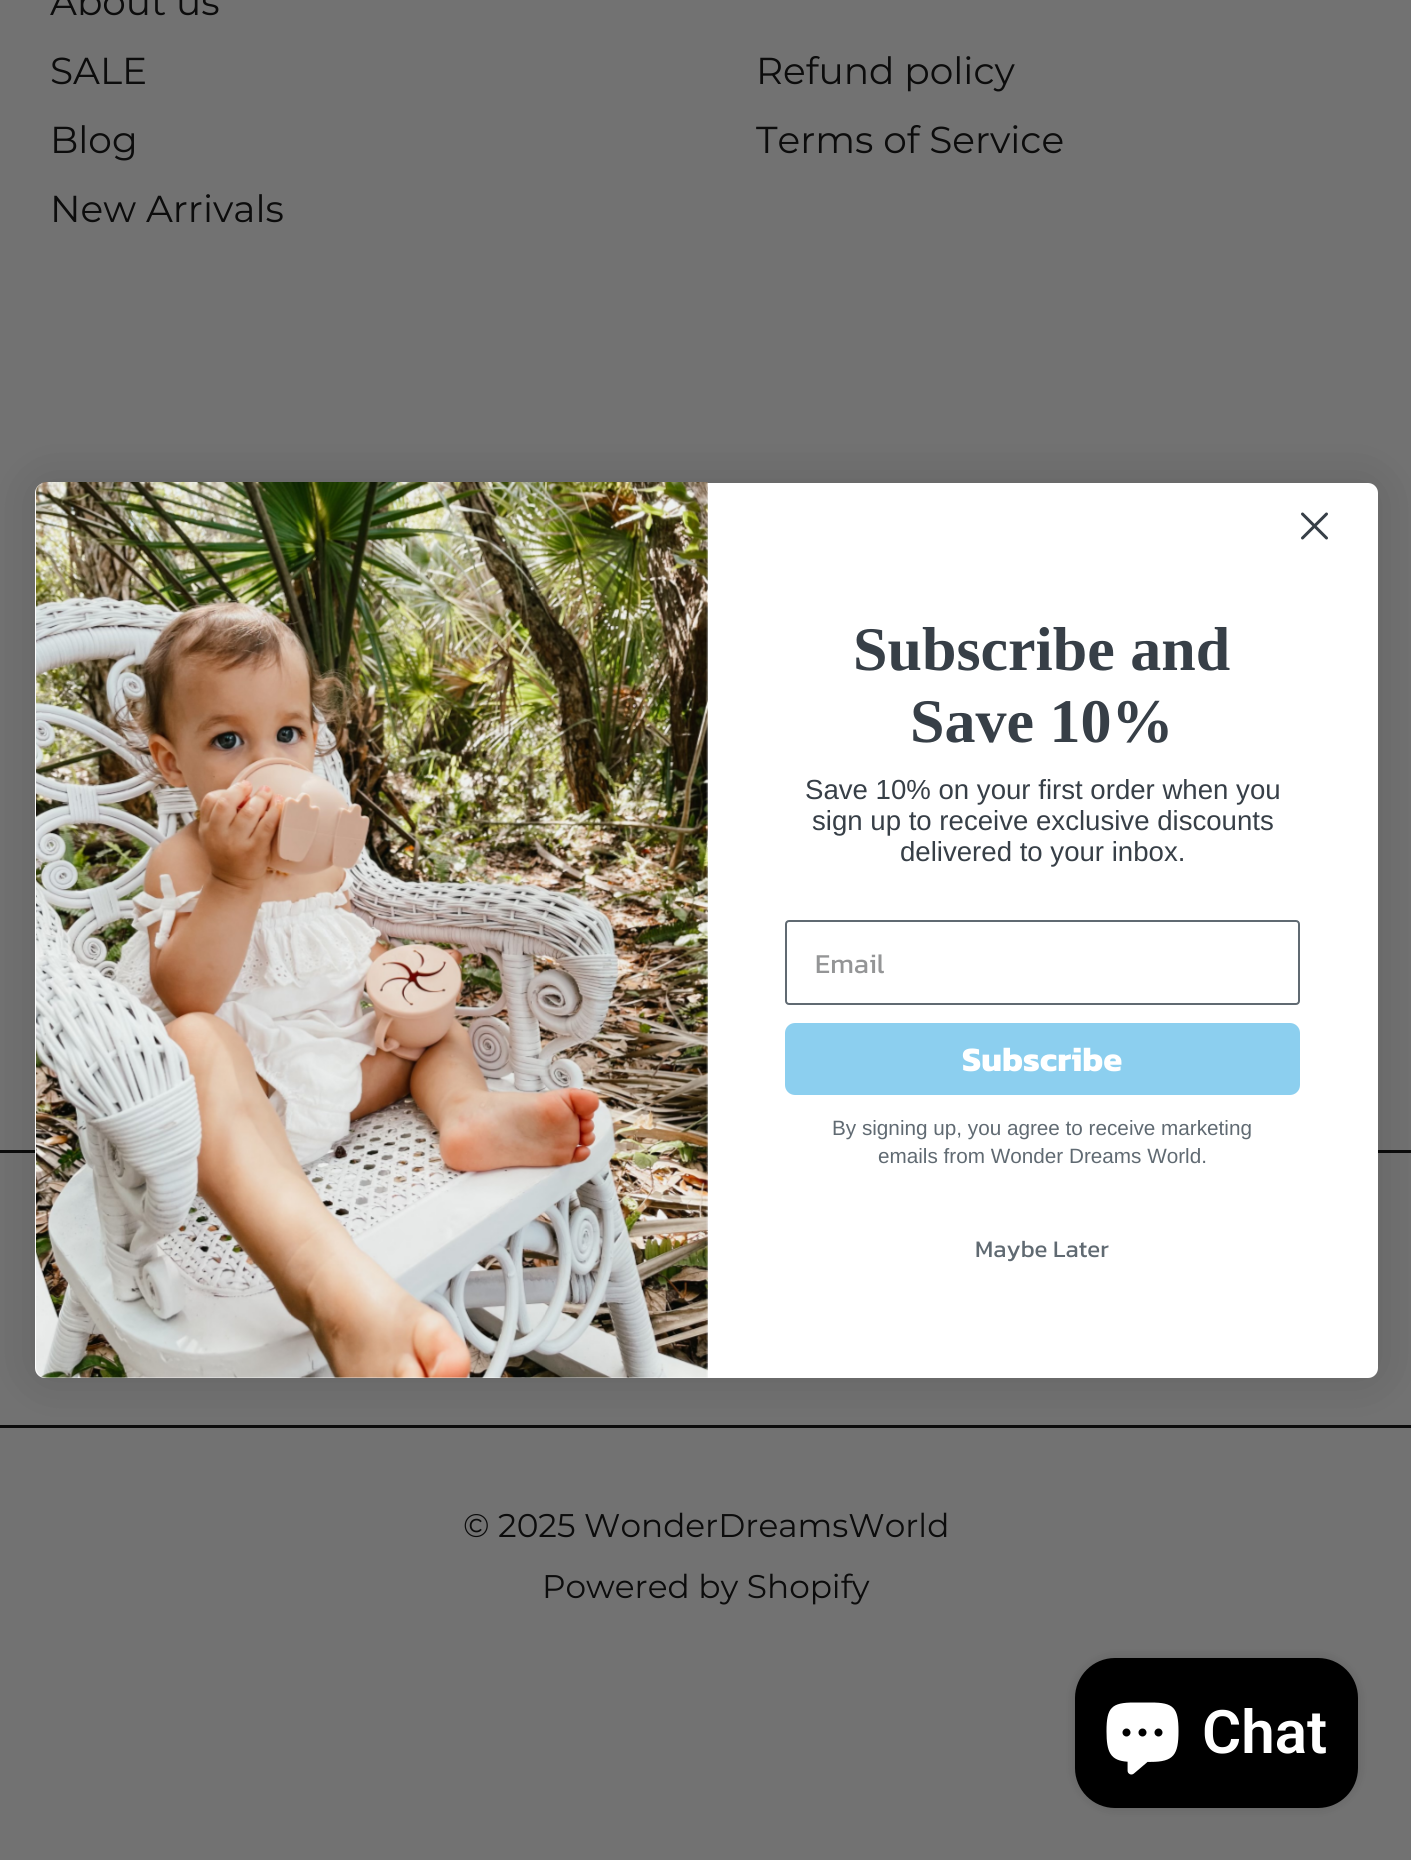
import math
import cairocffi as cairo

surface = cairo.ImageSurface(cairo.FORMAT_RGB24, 1411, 1860)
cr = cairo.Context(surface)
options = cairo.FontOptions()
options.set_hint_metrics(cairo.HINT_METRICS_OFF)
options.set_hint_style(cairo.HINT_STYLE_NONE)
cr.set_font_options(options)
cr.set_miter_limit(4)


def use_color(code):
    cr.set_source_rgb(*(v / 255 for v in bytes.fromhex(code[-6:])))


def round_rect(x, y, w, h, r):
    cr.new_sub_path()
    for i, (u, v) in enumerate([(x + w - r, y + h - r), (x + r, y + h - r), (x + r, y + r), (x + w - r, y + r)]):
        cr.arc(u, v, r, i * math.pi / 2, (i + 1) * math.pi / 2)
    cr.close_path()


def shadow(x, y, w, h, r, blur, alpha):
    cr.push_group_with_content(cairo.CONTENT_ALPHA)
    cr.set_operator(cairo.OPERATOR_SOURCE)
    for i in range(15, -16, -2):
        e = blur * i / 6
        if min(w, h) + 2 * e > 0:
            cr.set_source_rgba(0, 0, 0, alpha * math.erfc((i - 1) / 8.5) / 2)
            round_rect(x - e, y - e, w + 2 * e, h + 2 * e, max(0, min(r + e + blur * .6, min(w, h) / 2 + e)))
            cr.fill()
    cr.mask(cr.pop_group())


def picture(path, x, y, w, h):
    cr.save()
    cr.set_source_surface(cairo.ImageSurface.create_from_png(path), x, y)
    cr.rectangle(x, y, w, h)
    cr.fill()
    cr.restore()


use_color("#727272")
cr.paint()
cr.select_font_face("Montserrat")
cr.set_font_size(37.5)
use_color("#0c0c0c")
cr.move_to(50, 15)
cr.show_text("About us")
cr.move_to(50, 84)
cr.show_text("SALE")
cr.move_to(50, 153)
cr.show_text("Blog")
cr.move_to(50, 222)
cr.show_text("New Arrivals")
cr.move_to(756, 84)
cr.show_text("Refund policy")
cr.move_to(756, 153)
cr.show_text("Terms of Service")
cr.rectangle(0, 1150, 1411, 3)
cr.fill()
cr.rectangle(0, 1425, 1411, 3)
cr.fill()
cr.set_font_size(32.75)
cr.move_to(463, 1537)
cr.show_text("© 2025 WonderDreamsWorld")
cr.move_to(542, 1598)
cr.show_text("Powered by Shopify")
use_color("#000000")
shadow(35, 483, 1343, 895, 10, 26, 0.15)
use_color("#ffffff")
round_rect(35, 483, 1343, 895, 10)
cr.fill()
cr.new_path()
cr.move_to(1302.5, 514)
cr.line_to(1326.5, 538)
cr.move_to(1302.5, 538)
cr.line_to(1326.5, 514)
cr.close_path()
use_color("#373f47")
cr.set_line_width(3)
cr.set_line_cap(cairo.LINE_CAP_ROUND)
cr.set_line_join(cairo.LINE_JOIN_ROUND)
cr.stroke()
picture("img1.png", 36, 482, 672, 896)
cr.select_font_face("Liberation Serif", cairo.FONT_SLANT_NORMAL, cairo.FONT_WEIGHT_BOLD)
cr.set_font_size(62)
cr.move_to(853, 670)
cr.show_text("Subscribe and")
cr.move_to(910, 742)
cr.show_text("Save 10%")
cr.select_font_face("Liberation Sans")
cr.set_font_size(27.6)
cr.move_to(805, 799)
cr.show_text("Save 10% on your first order when you")
cr.move_to(812, 830)
cr.show_text("sign up to receive exclusive discounts")
cr.move_to(900, 861)
cr.show_text("delivered to your inbox.")
round_rect(786, 921, 513, 83, 3)
use_color("#606a72")
cr.set_line_width(2)
cr.set_line_cap(cairo.LINE_CAP_BUTT)
cr.set_line_join(cairo.LINE_JOIN_MITER)
cr.stroke()
cr.select_font_face("Kanit")
use_color("#949596")
cr.move_to(815, 973)
cr.show_text("Email")
use_color("#8ccfef")
round_rect(785, 1023, 515, 72, 10)
cr.fill()
cr.select_font_face("Kanit", cairo.FONT_SLANT_NORMAL, cairo.FONT_WEIGHT_BOLD)
cr.set_font_size(34.5)
use_color("#ffffff")
cr.move_to(962, 1071)
cr.show_text("Subscribe")
cr.select_font_face("Liberation Sans")
cr.set_font_size(20.7)
use_color("#606a72")
cr.move_to(832, 1135)
cr.show_text("By signing up, you agree to receive marketing")
cr.move_to(878, 1163)
cr.show_text("emails from Wonder Dreams World.")
cr.select_font_face("Kanit")
cr.set_font_size(24)
cr.move_to(975, 1257)
cr.show_text("Maybe Later")
use_color("#000000")
shadow(1075, 1658, 283, 150, 40, 6, 0.15)
use_color("#000000")
round_rect(1075, 1658, 283, 150, 40)
cr.fill()
picture("img2.png", 1106, 1702, 73, 73)
cr.select_font_face("Roboto SemiBold")
cr.set_font_size(60)
use_color("#ffffff")
cr.move_to(1202, 1753)
cr.show_text("Chat")
surface.write_to_png("result.png")
